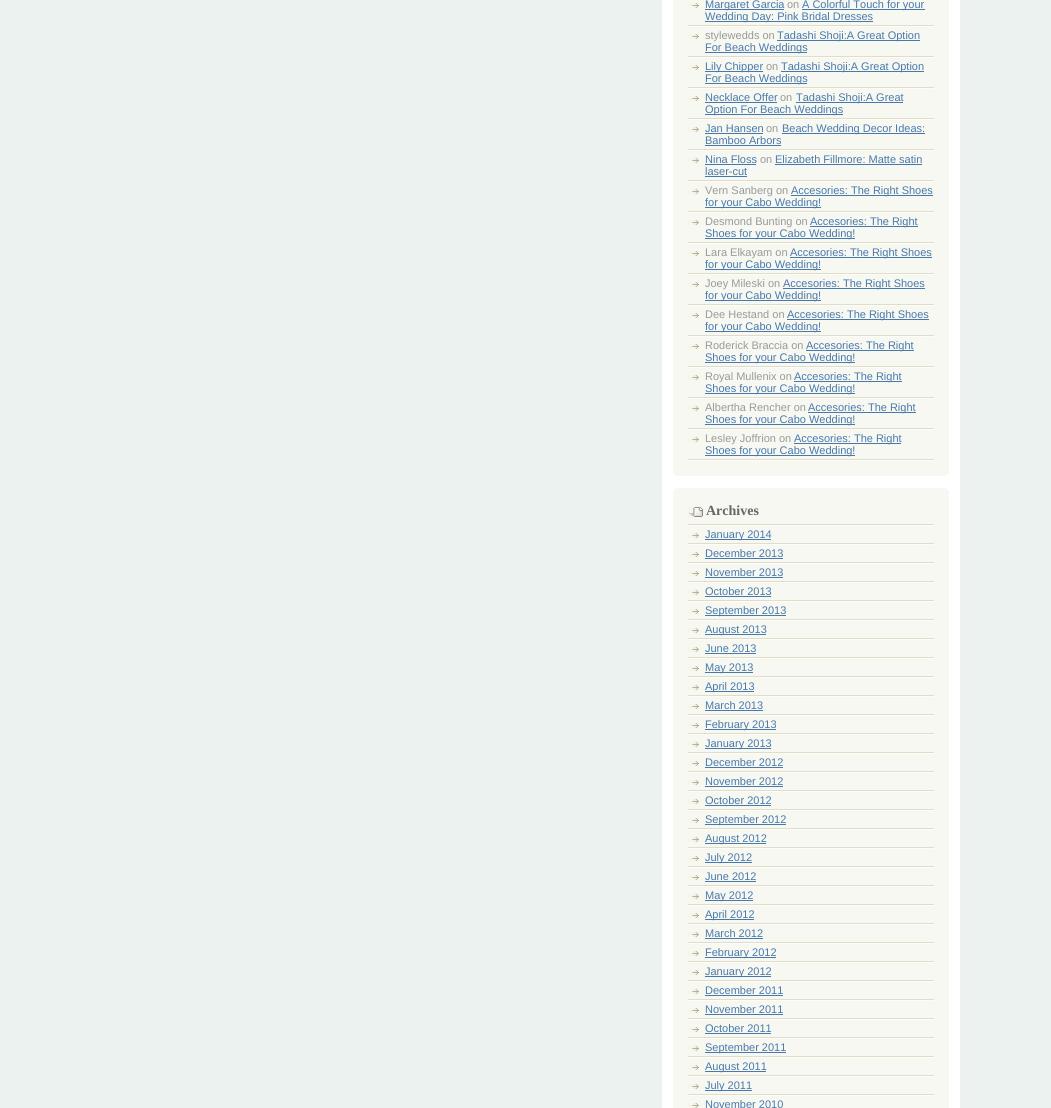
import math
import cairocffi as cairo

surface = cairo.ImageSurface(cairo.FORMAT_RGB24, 1051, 1108)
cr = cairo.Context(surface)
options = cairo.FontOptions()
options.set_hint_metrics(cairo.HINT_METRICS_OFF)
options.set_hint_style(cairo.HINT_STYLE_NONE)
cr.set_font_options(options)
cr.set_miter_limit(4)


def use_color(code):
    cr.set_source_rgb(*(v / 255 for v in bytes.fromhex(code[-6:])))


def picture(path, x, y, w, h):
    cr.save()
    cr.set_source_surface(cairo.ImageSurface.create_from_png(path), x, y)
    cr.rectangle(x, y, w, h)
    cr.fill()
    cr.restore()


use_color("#ebf2ef")
cr.paint()
use_color("#ffffff")
cr.rectangle(662, 0, 298, 1108)
cr.fill()
use_color("#f2f0ea")
cr.rectangle(960, 0, 1, 1108)
cr.fill()
cr.rectangle(661, 0, 1, 1108)
cr.fill()
use_color("#f8f8f2")
cr.rectangle(673, 0, 276, 473)
cr.fill()
picture("img1.png", 673, 473, 276, 3)
use_color("#fefdf5")
cr.rectangle(688, 460, 246, 1)
cr.fill()
picture("img2.png", 688, 3, 11, 5)
use_color("#e1ddcd")
cr.rectangle(688, 25, 246, 1)
cr.fill()
use_color("#4779ac")
cr.rectangle(705, 9, 79, 1)
cr.fill()
cr.select_font_face("Liberation Sans")
cr.set_font_size(11)
cr.move_to(705, 8)
cr.show_text("Margaret Garcia")
use_color("#999999")
cr.move_to(787, 8)
cr.show_text("on")
use_color("#4779ac")
cr.rectangle(802, 9, 123, 1)
cr.fill()
cr.move_to(802, 8)
cr.show_text("A Colorful Touch for your")
cr.rectangle(705, 21, 168, 1)
cr.fill()
cr.move_to(705, 20)
cr.show_text("Wedding Day: Pink Bridal Dresses")
picture("img2.png", 688, 34, 11, 5)
use_color("#fefdf5")
cr.rectangle(688, 26, 246, 1)
cr.fill()
use_color("#e1ddcd")
cr.rectangle(688, 56, 246, 1)
cr.fill()
use_color("#999999")
cr.move_to(705, 39)
cr.show_text("stylewedds on")
use_color("#4779ac")
cr.rectangle(777, 40, 143, 1)
cr.fill()
cr.move_to(777, 39)
cr.show_text("Tadashi Shoji:A Great Option")
cr.rectangle(705, 52, 102, 1)
cr.fill()
cr.move_to(705, 51)
cr.show_text("For Beach Weddings")
picture("img2.png", 688, 65, 11, 5)
use_color("#fefdf5")
cr.rectangle(688, 57, 246, 1)
cr.fill()
use_color("#e1ddcd")
cr.rectangle(688, 87, 246, 1)
cr.fill()
use_color("#4779ac")
cr.rectangle(705, 71, 58, 1)
cr.fill()
cr.move_to(705, 70)
cr.show_text("Lily Chipper")
use_color("#999999")
cr.move_to(766, 70)
cr.show_text("on")
use_color("#4779ac")
cr.rectangle(781, 71, 143, 1)
cr.fill()
cr.move_to(781, 70)
cr.show_text("Tadashi Shoji:A Great Option")
cr.rectangle(705, 83, 102, 1)
cr.fill()
cr.move_to(705, 82)
cr.show_text("For Beach Weddings")
picture("img2.png", 688, 96, 11, 5)
use_color("#fefdf5")
cr.rectangle(688, 88, 246, 1)
cr.fill()
use_color("#e1ddcd")
cr.rectangle(688, 118, 246, 1)
cr.fill()
use_color("#4779ac")
cr.move_to(705, 101)
cr.show_text("Necklace Offer")
cr.rectangle(705, 102, 72, 1)
cr.fill()
use_color("#999999")
cr.move_to(780, 101)
cr.show_text("on")
use_color("#4779ac")
cr.rectangle(796, 102, 107, 1)
cr.fill()
cr.move_to(796, 101)
cr.show_text("Tadashi Shoji:A Great")
cr.rectangle(705, 114, 138, 1)
cr.fill()
cr.move_to(705, 113)
cr.show_text("Option For Beach Weddings")
picture("img2.png", 688, 127, 11, 5)
use_color("#fefdf5")
cr.rectangle(688, 119, 246, 1)
cr.fill()
use_color("#e1ddcd")
cr.rectangle(688, 149, 246, 1)
cr.fill()
use_color("#4779ac")
cr.move_to(705, 132)
cr.show_text("Jan Hansen")
cr.rectangle(705, 133, 58, 1)
cr.fill()
use_color("#999999")
cr.move_to(766, 132)
cr.show_text("on")
use_color("#4779ac")
cr.rectangle(782, 133, 143, 1)
cr.fill()
cr.move_to(782, 132)
cr.show_text("Beach Wedding Decor Ideas:")
cr.move_to(705, 144)
cr.show_text("Bamboo Arbors")
cr.rectangle(705, 145, 76, 1)
cr.fill()
picture("img2.png", 688, 158, 11, 5)
use_color("#fefdf5")
cr.rectangle(688, 150, 246, 1)
cr.fill()
use_color("#e1ddcd")
cr.rectangle(688, 180, 246, 1)
cr.fill()
use_color("#4779ac")
cr.move_to(705, 163)
cr.show_text("Nina Floss")
cr.rectangle(705, 164, 51, 1)
cr.fill()
use_color("#999999")
cr.move_to(760, 163)
cr.show_text("on")
use_color("#4779ac")
cr.move_to(775, 163)
cr.show_text("Elizabeth Fillmore: Matte satin")
cr.rectangle(775, 164, 147, 1)
cr.fill()
cr.move_to(705, 175)
cr.show_text("laser-cut")
cr.rectangle(705, 176, 42, 1)
cr.fill()
picture("img2.png", 688, 189, 11, 5)
use_color("#fefdf5")
cr.rectangle(688, 181, 246, 1)
cr.fill()
use_color("#e1ddcd")
cr.rectangle(688, 211, 246, 1)
cr.fill()
use_color("#999999")
cr.move_to(705, 194)
cr.show_text("Vern Sanberg on")
use_color("#4779ac")
cr.rectangle(791, 195, 142, 1)
cr.fill()
cr.move_to(791, 194)
cr.show_text("Accesories: The Right Shoes")
cr.rectangle(705, 207, 116, 1)
cr.fill()
cr.move_to(705, 206)
cr.show_text("for your Cabo Wedding!")
picture("img2.png", 688, 220, 11, 5)
use_color("#fefdf5")
cr.rectangle(688, 212, 246, 1)
cr.fill()
use_color("#e1ddcd")
cr.rectangle(688, 242, 246, 1)
cr.fill()
use_color("#999999")
cr.move_to(705, 225)
cr.show_text("Desmond Bunting on")
use_color("#4779ac")
cr.rectangle(810, 226, 108, 1)
cr.fill()
cr.move_to(810, 225)
cr.show_text("Accesories: The Right")
cr.rectangle(705, 238, 150, 1)
cr.fill()
cr.move_to(705, 237)
cr.show_text("Shoes for your Cabo Wedding!")
picture("img2.png", 688, 251, 11, 5)
use_color("#fefdf5")
cr.rectangle(688, 243, 246, 1)
cr.fill()
use_color("#e1ddcd")
cr.rectangle(688, 273, 246, 1)
cr.fill()
use_color("#999999")
cr.move_to(705, 256)
cr.show_text("Lara Elkayam on")
use_color("#4779ac")
cr.rectangle(790, 257, 142, 1)
cr.fill()
cr.move_to(790, 256)
cr.show_text("Accesories: The Right Shoes")
cr.rectangle(705, 269, 116, 1)
cr.fill()
cr.move_to(705, 268)
cr.show_text("for your Cabo Wedding!")
picture("img2.png", 688, 282, 11, 5)
use_color("#fefdf5")
cr.rectangle(688, 274, 246, 1)
cr.fill()
use_color("#e1ddcd")
cr.rectangle(688, 304, 246, 1)
cr.fill()
use_color("#999999")
cr.move_to(705, 287)
cr.show_text("Joey Mileski on")
use_color("#4779ac")
cr.rectangle(783, 288, 142, 1)
cr.fill()
cr.move_to(783, 287)
cr.show_text("Accesories: The Right Shoes")
cr.rectangle(705, 300, 116, 1)
cr.fill()
cr.move_to(705, 299)
cr.show_text("for your Cabo Wedding!")
picture("img2.png", 688, 313, 11, 5)
use_color("#fefdf5")
cr.rectangle(688, 305, 246, 1)
cr.fill()
use_color("#e1ddcd")
cr.rectangle(688, 335, 246, 1)
cr.fill()
use_color("#999999")
cr.move_to(705, 318)
cr.show_text("Dee Hestand on")
use_color("#4779ac")
cr.rectangle(787, 319, 142, 1)
cr.fill()
cr.move_to(787, 318)
cr.show_text("Accesories: The Right Shoes")
cr.rectangle(705, 331, 116, 1)
cr.fill()
cr.move_to(705, 330)
cr.show_text("for your Cabo Wedding!")
picture("img2.png", 688, 344, 11, 5)
use_color("#fefdf5")
cr.rectangle(688, 336, 246, 1)
cr.fill()
use_color("#e1ddcd")
cr.rectangle(688, 366, 246, 1)
cr.fill()
use_color("#999999")
cr.move_to(705, 349)
cr.show_text("Roderick Braccia on")
use_color("#4779ac")
cr.rectangle(806, 350, 108, 1)
cr.fill()
cr.move_to(806, 349)
cr.show_text("Accesories: The Right")
cr.rectangle(705, 362, 150, 1)
cr.fill()
cr.move_to(705, 361)
cr.show_text("Shoes for your Cabo Wedding!")
picture("img2.png", 688, 375, 11, 5)
use_color("#fefdf5")
cr.rectangle(688, 367, 246, 1)
cr.fill()
use_color("#e1ddcd")
cr.rectangle(688, 397, 246, 1)
cr.fill()
use_color("#999999")
cr.move_to(705, 380)
cr.show_text("Royal Mullenix on")
use_color("#4779ac")
cr.rectangle(794, 381, 108, 1)
cr.fill()
cr.move_to(794, 380)
cr.show_text("Accesories: The Right")
cr.rectangle(705, 393, 150, 1)
cr.fill()
cr.move_to(705, 392)
cr.show_text("Shoes for your Cabo Wedding!")
picture("img2.png", 688, 406, 11, 5)
use_color("#fefdf5")
cr.rectangle(688, 398, 246, 1)
cr.fill()
use_color("#e1ddcd")
cr.rectangle(688, 428, 246, 1)
cr.fill()
use_color("#999999")
cr.move_to(705, 411)
cr.show_text("Albertha Rencher on")
use_color("#4779ac")
cr.rectangle(808, 412, 108, 1)
cr.fill()
cr.move_to(808, 411)
cr.show_text("Accesories: The Right")
cr.rectangle(705, 424, 150, 1)
cr.fill()
cr.move_to(705, 423)
cr.show_text("Shoes for your Cabo Wedding!")
picture("img2.png", 688, 437, 11, 5)
use_color("#fefdf5")
cr.rectangle(688, 429, 246, 1)
cr.fill()
use_color("#e1ddcd")
cr.rectangle(688, 459, 246, 1)
cr.fill()
use_color("#999999")
cr.move_to(705, 442)
cr.show_text("Lesley Joffrion on")
use_color("#4779ac")
cr.rectangle(794, 443, 107, 1)
cr.fill()
cr.move_to(794, 442)
cr.show_text("Accesories: The Right")
cr.rectangle(705, 455, 150, 1)
cr.fill()
cr.move_to(705, 454)
cr.show_text("Shoes for your Cabo Wedding!")
use_color("#f8f8f2")
cr.rectangle(673, 491, 276, 617)
cr.fill()
picture("img3.png", 673, 488, 276, 3)
picture("img4.png", 688, 507, 15, 10)
cr.select_font_face("Liberation Serif", cairo.FONT_SLANT_NORMAL, cairo.FONT_WEIGHT_BOLD)
cr.set_font_size(14)
use_color("#666666")
cr.move_to(706, 515)
cr.show_text("Archives")
use_color("#e1ddcd")
cr.rectangle(688, 524, 246, 1)
cr.fill()
picture("img2.png", 688, 533, 11, 5)
use_color("#fefdf5")
cr.rectangle(688, 525, 246, 1)
cr.fill()
use_color("#e1ddcd")
cr.rectangle(688, 543, 246, 1)
cr.fill()
use_color("#4779ac")
cr.rectangle(705, 539, 66, 1)
cr.fill()
cr.select_font_face("Liberation Sans")
cr.set_font_size(11)
cr.move_to(705, 538)
cr.show_text("January 2014")
picture("img2.png", 688, 552, 11, 5)
use_color("#fefdf5")
cr.rectangle(688, 544, 246, 1)
cr.fill()
use_color("#e1ddcd")
cr.rectangle(688, 562, 246, 1)
cr.fill()
use_color("#4779ac")
cr.move_to(705, 557)
cr.show_text("December 2013")
cr.rectangle(705, 558, 78, 1)
cr.fill()
picture("img2.png", 688, 571, 11, 5)
use_color("#fefdf5")
cr.rectangle(688, 563, 246, 1)
cr.fill()
use_color("#e1ddcd")
cr.rectangle(688, 581, 246, 1)
cr.fill()
use_color("#4779ac")
cr.move_to(705, 576)
cr.show_text("November 2013")
cr.rectangle(705, 577, 78, 1)
cr.fill()
picture("img2.png", 688, 590, 11, 5)
use_color("#fefdf5")
cr.rectangle(688, 582, 246, 1)
cr.fill()
use_color("#e1ddcd")
cr.rectangle(688, 600, 246, 1)
cr.fill()
use_color("#4779ac")
cr.move_to(705, 595)
cr.show_text("October 2013")
cr.rectangle(705, 596, 66, 1)
cr.fill()
picture("img2.png", 688, 609, 11, 5)
use_color("#fefdf5")
cr.rectangle(688, 601, 246, 1)
cr.fill()
use_color("#e1ddcd")
cr.rectangle(688, 619, 246, 1)
cr.fill()
use_color("#4779ac")
cr.rectangle(705, 615, 81, 1)
cr.fill()
cr.move_to(705, 614)
cr.show_text("September 2013")
picture("img2.png", 688, 628, 11, 5)
use_color("#fefdf5")
cr.rectangle(688, 620, 246, 1)
cr.fill()
use_color("#e1ddcd")
cr.rectangle(688, 638, 246, 1)
cr.fill()
use_color("#4779ac")
cr.rectangle(705, 634, 61, 1)
cr.fill()
cr.move_to(705, 633)
cr.show_text("August 2013")
picture("img2.png", 688, 647, 11, 5)
use_color("#fefdf5")
cr.rectangle(688, 639, 246, 1)
cr.fill()
use_color("#e1ddcd")
cr.rectangle(688, 657, 246, 1)
cr.fill()
use_color("#4779ac")
cr.move_to(705, 652)
cr.show_text("June 2013")
cr.rectangle(705, 653, 51, 1)
cr.fill()
picture("img2.png", 688, 666, 11, 5)
use_color("#fefdf5")
cr.rectangle(688, 658, 246, 1)
cr.fill()
use_color("#e1ddcd")
cr.rectangle(688, 676, 246, 1)
cr.fill()
use_color("#4779ac")
cr.rectangle(705, 672, 48, 1)
cr.fill()
cr.move_to(705, 671)
cr.show_text("May 2013")
picture("img2.png", 688, 685, 11, 5)
use_color("#fefdf5")
cr.rectangle(688, 677, 246, 1)
cr.fill()
use_color("#e1ddcd")
cr.rectangle(688, 695, 246, 1)
cr.fill()
use_color("#4779ac")
cr.rectangle(705, 691, 49, 1)
cr.fill()
cr.move_to(705, 690)
cr.show_text("April 2013")
picture("img2.png", 688, 704, 11, 5)
use_color("#fefdf5")
cr.rectangle(688, 696, 246, 1)
cr.fill()
use_color("#e1ddcd")
cr.rectangle(688, 714, 246, 1)
cr.fill()
use_color("#4779ac")
cr.move_to(705, 709)
cr.show_text("March 2013")
cr.rectangle(705, 710, 58, 1)
cr.fill()
picture("img2.png", 688, 723, 11, 5)
use_color("#fefdf5")
cr.rectangle(688, 715, 246, 1)
cr.fill()
use_color("#e1ddcd")
cr.rectangle(688, 733, 246, 1)
cr.fill()
use_color("#4779ac")
cr.rectangle(705, 729, 71, 1)
cr.fill()
cr.move_to(705, 728)
cr.show_text("February 2013")
picture("img2.png", 688, 742, 11, 5)
use_color("#fefdf5")
cr.rectangle(688, 734, 246, 1)
cr.fill()
use_color("#e1ddcd")
cr.rectangle(688, 752, 246, 1)
cr.fill()
use_color("#4779ac")
cr.rectangle(705, 748, 66, 1)
cr.fill()
cr.move_to(705, 747)
cr.show_text("January 2013")
picture("img2.png", 688, 761, 11, 5)
use_color("#fefdf5")
cr.rectangle(688, 753, 246, 1)
cr.fill()
use_color("#e1ddcd")
cr.rectangle(688, 771, 246, 1)
cr.fill()
use_color("#4779ac")
cr.move_to(705, 766)
cr.show_text("December 2012")
cr.rectangle(705, 767, 78, 1)
cr.fill()
picture("img2.png", 688, 780, 11, 5)
use_color("#fefdf5")
cr.rectangle(688, 772, 246, 1)
cr.fill()
use_color("#e1ddcd")
cr.rectangle(688, 790, 246, 1)
cr.fill()
use_color("#4779ac")
cr.move_to(705, 785)
cr.show_text("November 2012")
cr.rectangle(705, 786, 78, 1)
cr.fill()
picture("img2.png", 688, 799, 11, 5)
use_color("#fefdf5")
cr.rectangle(688, 791, 246, 1)
cr.fill()
use_color("#e1ddcd")
cr.rectangle(688, 809, 246, 1)
cr.fill()
use_color("#4779ac")
cr.move_to(705, 804)
cr.show_text("October 2012")
cr.rectangle(705, 805, 66, 1)
cr.fill()
picture("img2.png", 688, 818, 11, 5)
use_color("#fefdf5")
cr.rectangle(688, 810, 246, 1)
cr.fill()
use_color("#e1ddcd")
cr.rectangle(688, 828, 246, 1)
cr.fill()
use_color("#4779ac")
cr.rectangle(705, 824, 81, 1)
cr.fill()
cr.move_to(705, 823)
cr.show_text("September 2012")
picture("img2.png", 688, 837, 11, 5)
use_color("#fefdf5")
cr.rectangle(688, 829, 246, 1)
cr.fill()
use_color("#e1ddcd")
cr.rectangle(688, 847, 246, 1)
cr.fill()
use_color("#4779ac")
cr.rectangle(705, 843, 61, 1)
cr.fill()
cr.move_to(705, 842)
cr.show_text("August 2012")
picture("img2.png", 688, 856, 11, 5)
use_color("#fefdf5")
cr.rectangle(688, 848, 246, 1)
cr.fill()
use_color("#e1ddcd")
cr.rectangle(688, 866, 246, 1)
cr.fill()
use_color("#4779ac")
cr.rectangle(705, 862, 47, 1)
cr.fill()
cr.move_to(705, 861)
cr.show_text("July 2012")
picture("img2.png", 688, 875, 11, 5)
use_color("#fefdf5")
cr.rectangle(688, 867, 246, 1)
cr.fill()
use_color("#e1ddcd")
cr.rectangle(688, 885, 246, 1)
cr.fill()
use_color("#4779ac")
cr.move_to(705, 880)
cr.show_text("June 2012")
cr.rectangle(705, 881, 51, 1)
cr.fill()
picture("img2.png", 688, 894, 11, 5)
use_color("#fefdf5")
cr.rectangle(688, 886, 246, 1)
cr.fill()
use_color("#e1ddcd")
cr.rectangle(688, 904, 246, 1)
cr.fill()
use_color("#4779ac")
cr.rectangle(705, 900, 48, 1)
cr.fill()
cr.move_to(705, 899)
cr.show_text("May 2012")
picture("img2.png", 688, 913, 11, 5)
use_color("#fefdf5")
cr.rectangle(688, 905, 246, 1)
cr.fill()
use_color("#e1ddcd")
cr.rectangle(688, 923, 246, 1)
cr.fill()
use_color("#4779ac")
cr.rectangle(705, 919, 49, 1)
cr.fill()
cr.move_to(705, 918)
cr.show_text("April 2012")
picture("img2.png", 688, 932, 11, 5)
use_color("#fefdf5")
cr.rectangle(688, 924, 246, 1)
cr.fill()
use_color("#e1ddcd")
cr.rectangle(688, 942, 246, 1)
cr.fill()
use_color("#4779ac")
cr.move_to(705, 937)
cr.show_text("March 2012")
cr.rectangle(705, 938, 58, 1)
cr.fill()
picture("img2.png", 688, 951, 11, 5)
use_color("#fefdf5")
cr.rectangle(688, 943, 246, 1)
cr.fill()
use_color("#e1ddcd")
cr.rectangle(688, 961, 246, 1)
cr.fill()
use_color("#4779ac")
cr.rectangle(705, 957, 71, 1)
cr.fill()
cr.move_to(705, 956)
cr.show_text("February 2012")
picture("img2.png", 688, 970, 11, 5)
use_color("#fefdf5")
cr.rectangle(688, 962, 246, 1)
cr.fill()
use_color("#e1ddcd")
cr.rectangle(688, 980, 246, 1)
cr.fill()
use_color("#4779ac")
cr.rectangle(705, 976, 66, 1)
cr.fill()
cr.move_to(705, 975)
cr.show_text("January 2012")
picture("img2.png", 688, 989, 11, 5)
use_color("#fefdf5")
cr.rectangle(688, 981, 246, 1)
cr.fill()
use_color("#e1ddcd")
cr.rectangle(688, 999, 246, 1)
cr.fill()
use_color("#4779ac")
cr.move_to(705, 994)
cr.show_text("December 2011")
cr.rectangle(705, 995, 78, 1)
cr.fill()
picture("img2.png", 688, 1008, 11, 5)
use_color("#fefdf5")
cr.rectangle(688, 1000, 246, 1)
cr.fill()
use_color("#e1ddcd")
cr.rectangle(688, 1018, 246, 1)
cr.fill()
use_color("#4779ac")
cr.move_to(705, 1013)
cr.show_text("November 2011")
cr.rectangle(705, 1014, 78, 1)
cr.fill()
picture("img2.png", 688, 1027, 11, 5)
use_color("#fefdf5")
cr.rectangle(688, 1019, 246, 1)
cr.fill()
use_color("#e1ddcd")
cr.rectangle(688, 1037, 246, 1)
cr.fill()
use_color("#4779ac")
cr.move_to(705, 1032)
cr.show_text("October 2011")
cr.rectangle(705, 1033, 66, 1)
cr.fill()
picture("img2.png", 688, 1046, 11, 5)
use_color("#fefdf5")
cr.rectangle(688, 1038, 246, 1)
cr.fill()
use_color("#e1ddcd")
cr.rectangle(688, 1056, 246, 1)
cr.fill()
use_color("#4779ac")
cr.rectangle(705, 1052, 81, 1)
cr.fill()
cr.move_to(705, 1051)
cr.show_text("September 2011")
picture("img2.png", 688, 1065, 11, 5)
use_color("#fefdf5")
cr.rectangle(688, 1057, 246, 1)
cr.fill()
use_color("#e1ddcd")
cr.rectangle(688, 1075, 246, 1)
cr.fill()
use_color("#4779ac")
cr.rectangle(705, 1071, 61, 1)
cr.fill()
cr.move_to(705, 1070)
cr.show_text("August 2011")
picture("img2.png", 688, 1084, 11, 5)
use_color("#fefdf5")
cr.rectangle(688, 1076, 246, 1)
cr.fill()
use_color("#e1ddcd")
cr.rectangle(688, 1094, 246, 1)
cr.fill()
use_color("#4779ac")
cr.rectangle(705, 1090, 47, 1)
cr.fill()
cr.move_to(705, 1089)
cr.show_text("July 2011")
picture("img2.png", 688, 1103, 11, 5)
use_color("#fefdf5")
cr.rectangle(688, 1095, 246, 1)
cr.fill()
use_color("#4779ac")
cr.move_to(705, 1108)
cr.show_text("November 2010")
surface.write_to_png("result.png")
